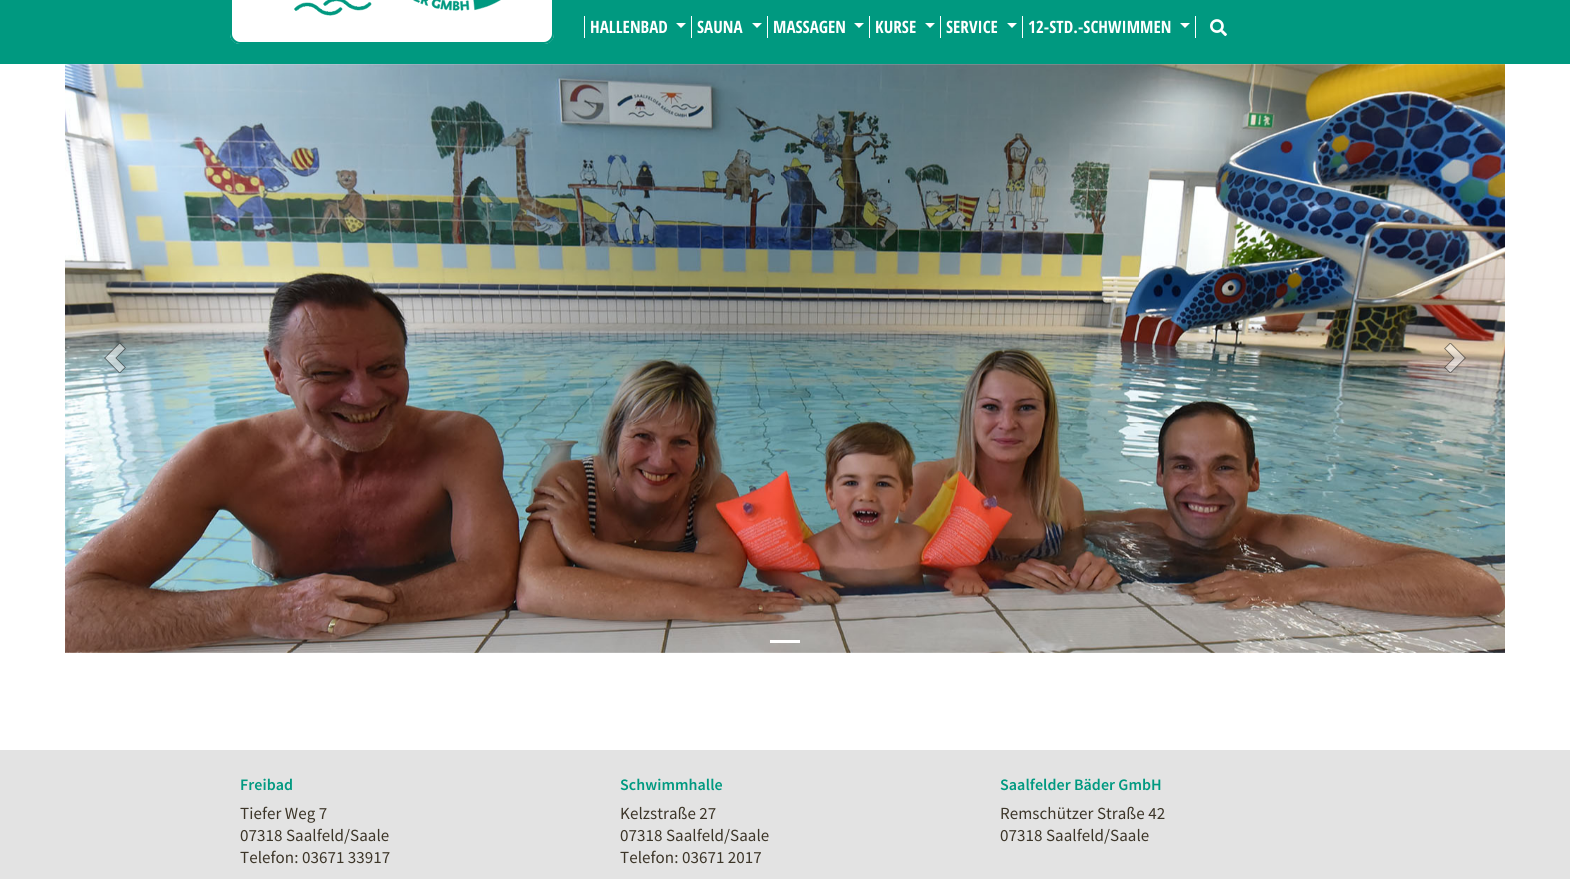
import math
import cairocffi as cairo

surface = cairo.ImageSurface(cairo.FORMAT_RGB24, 1570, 879)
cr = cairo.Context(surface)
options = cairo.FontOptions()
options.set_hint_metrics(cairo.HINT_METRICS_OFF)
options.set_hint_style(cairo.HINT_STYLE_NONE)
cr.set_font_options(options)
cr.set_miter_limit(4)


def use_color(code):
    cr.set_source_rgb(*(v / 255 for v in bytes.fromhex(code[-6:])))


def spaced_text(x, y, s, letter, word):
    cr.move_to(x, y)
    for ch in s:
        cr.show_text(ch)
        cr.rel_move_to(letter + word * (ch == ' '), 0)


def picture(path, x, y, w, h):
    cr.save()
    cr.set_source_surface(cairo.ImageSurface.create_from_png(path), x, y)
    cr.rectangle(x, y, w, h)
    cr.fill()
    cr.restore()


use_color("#ffffff")
cr.paint()
use_color("#009980")
cr.rectangle(0, 0, 1570, 64)
cr.fill()
use_color("#ffffff")
cr.new_path()
cr.move_to(230, -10)
cr.line_to(554, -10)
cr.line_to(554, 34)
cr.curve_to(554, 39.5, 549.5, 44, 544, 44)
cr.line_to(240, 44)
cr.curve_to(234.5, 44, 230, 39.5, 230, 34)
cr.close_path()
cr.fill()
use_color("#009980")
cr.set_fill_rule(cairo.FILL_RULE_EVEN_ODD)
cr.new_path()
cr.move_to(230, -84)
cr.line_to(554, -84)
cr.line_to(554, 34)
cr.curve_to(554, 40, 550, 44, 544, 44)
cr.line_to(240, 44)
cr.curve_to(234, 44, 230, 40, 230, 34)
cr.close_path()
cr.move_to(232, -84)
cr.line_to(552, -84)
cr.line_to(552, 34)
cr.curve_to(552, 38, 548, 42, 544, 42)
cr.line_to(240, 42)
cr.curve_to(236, 42, 232, 38, 232, 34)
cr.close_path()
cr.fill()
picture("img1.png", 294, 0, 207, 16)
use_color("#ffffff")
cr.rectangle(584, 16, 1, 22)
cr.fill()
cr.rectangle(691, 16, 1, 22)
cr.fill()
cr.select_font_face("Open Sans Condensed", cairo.FONT_SLANT_NORMAL, cairo.FONT_WEIGHT_BOLD)
cr.set_font_size(17)
spaced_text(590, 33, "HALLENBAD", 0.05, 0)
cr.set_fill_rule(cairo.FILL_RULE_WINDING)
cr.new_path()
cr.move_to(676, 23)
cr.line_to(686, 23)
cr.line_to(681, 28)
cr.close_path()
cr.fill()
cr.rectangle(767, 16, 1, 22)
cr.fill()
spaced_text(697, 33, "SAUNA", 0.05, 0)
cr.new_path()
cr.move_to(752, 23)
cr.line_to(762, 23)
cr.line_to(757, 28)
cr.close_path()
cr.fill()
cr.rectangle(869, 16, 1, 22)
cr.fill()
spaced_text(773, 33, "MASSAGEN", 0.05, 0)
cr.new_path()
cr.move_to(854, 23)
cr.line_to(864, 23)
cr.line_to(859, 28)
cr.close_path()
cr.fill()
cr.rectangle(940, 16, 1, 22)
cr.fill()
spaced_text(875, 33, "KURSE", 0.05, 0)
cr.new_path()
cr.move_to(925, 23)
cr.line_to(935, 23)
cr.line_to(930, 28)
cr.close_path()
cr.fill()
cr.rectangle(1022, 16, 1, 22)
cr.fill()
spaced_text(946, 33, "SERVICE", 0.05, 0)
cr.new_path()
cr.move_to(1007, 23)
cr.line_to(1017, 23)
cr.line_to(1012, 28)
cr.close_path()
cr.fill()
cr.rectangle(1195, 16, 1, 22)
cr.fill()
spaced_text(1028, 33, "12-STD.-SCHWIMMEN", 0.05, 0)
cr.new_path()
cr.move_to(1180, 23)
cr.line_to(1190, 23)
cr.line_to(1185, 28)
cr.close_path()
cr.fill()
picture("img2.png", 1210, 19, 17, 18)
picture("img3.png", 65, 64, 1440, 589)
picture("img4.png", 104, 343, 22, 30)
picture("img5.png", 1444, 343, 22, 30)
cr.rectangle(770, 640, 30, 3)
cr.fill()
use_color("#e3e3e3")
cr.rectangle(0, 750, 1570, 129)
cr.fill()
cr.select_font_face("Source Sans Pro SemiBold")
cr.set_font_size(16)
use_color("#009980")
spaced_text(240, 790, "Freibad", 0.05, 0)
cr.select_font_face("Source Sans Pro")
cr.set_font_size(17)
use_color("#3c3528")
spaced_text(240, 819, "Tiefer Weg 7", 0.05, 0)
spaced_text(240, 841, "07318 Saalfeld/Saale", 0.05, 0)
spaced_text(240, 863, "Telefon: 03671 33917", 0.05, 0)
cr.select_font_face("Source Sans Pro SemiBold")
cr.set_font_size(16)
use_color("#009980")
spaced_text(620, 790, "Schwimmhalle", 0.05, 0)
cr.select_font_face("Source Sans Pro")
cr.set_font_size(17)
use_color("#3c3528")
spaced_text(620, 819, "Kelzstraße 27", 0.05, 0)
spaced_text(620, 841, "07318 Saalfeld/Saale", 0.05, 0)
spaced_text(620, 863, "Telefon: 03671 2017", 0.05, 0)
cr.select_font_face("Source Sans Pro SemiBold")
cr.set_font_size(16)
use_color("#009980")
spaced_text(1000, 790, "Saalfelder Bäder GmbH", 0.05, 0)
cr.select_font_face("Source Sans Pro")
cr.set_font_size(17)
use_color("#3c3528")
spaced_text(1000, 819, "Remschützer Straße 42", 0.05, 0)
spaced_text(1000, 841, "07318 Saalfeld/Saale", 0.05, 0)
surface.write_to_png("result.png")
